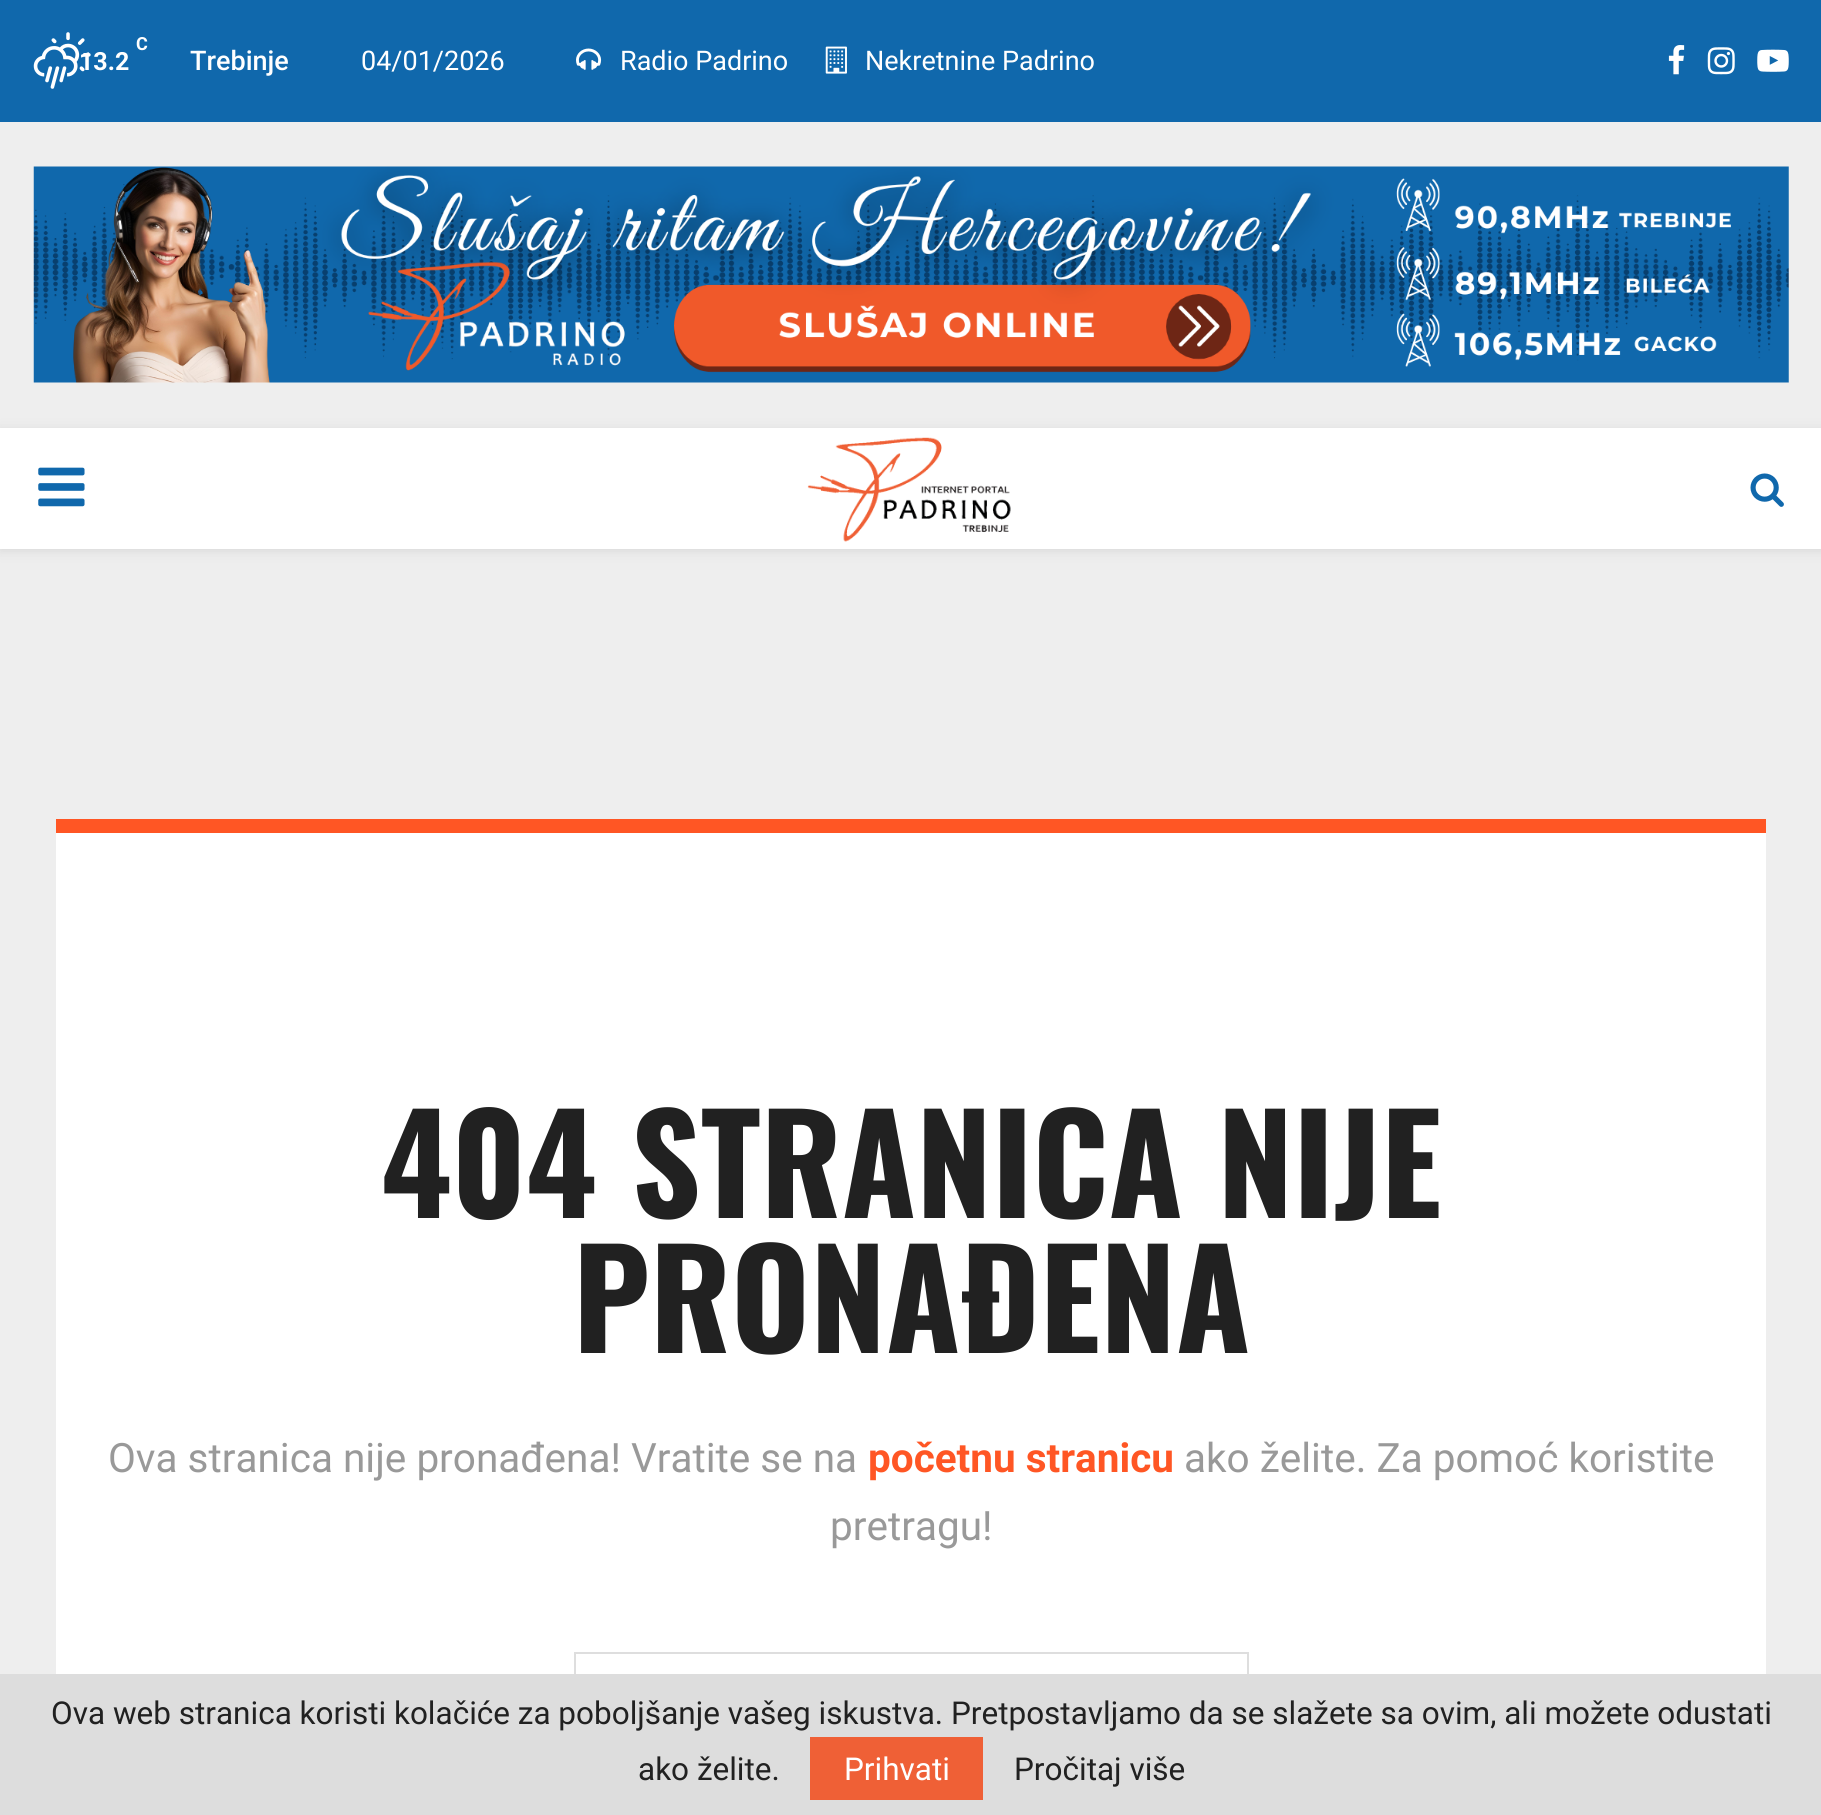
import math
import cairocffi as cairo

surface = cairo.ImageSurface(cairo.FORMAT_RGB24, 1821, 1815)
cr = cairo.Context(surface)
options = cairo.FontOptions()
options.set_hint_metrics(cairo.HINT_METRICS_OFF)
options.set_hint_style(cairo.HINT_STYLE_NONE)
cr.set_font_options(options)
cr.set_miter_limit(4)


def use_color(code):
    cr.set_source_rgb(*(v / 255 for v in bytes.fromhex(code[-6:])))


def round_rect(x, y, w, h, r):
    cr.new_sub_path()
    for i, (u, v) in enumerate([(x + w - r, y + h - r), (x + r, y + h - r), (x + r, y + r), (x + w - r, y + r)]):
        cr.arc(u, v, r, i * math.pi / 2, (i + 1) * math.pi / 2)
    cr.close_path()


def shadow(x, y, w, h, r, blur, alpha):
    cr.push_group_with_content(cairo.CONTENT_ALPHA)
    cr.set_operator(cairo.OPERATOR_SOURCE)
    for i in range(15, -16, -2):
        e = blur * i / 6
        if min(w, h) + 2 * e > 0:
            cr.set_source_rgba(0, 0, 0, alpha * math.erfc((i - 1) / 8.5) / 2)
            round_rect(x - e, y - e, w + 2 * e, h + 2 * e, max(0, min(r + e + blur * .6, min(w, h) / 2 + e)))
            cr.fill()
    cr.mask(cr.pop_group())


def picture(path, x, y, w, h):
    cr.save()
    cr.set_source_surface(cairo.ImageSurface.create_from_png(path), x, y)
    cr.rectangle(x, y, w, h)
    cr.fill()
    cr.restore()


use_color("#eeeeee")
cr.paint()
use_color("#1068ac")
cr.rectangle(0, 0, 1821, 122)
cr.fill()
picture("img1.png", 33, 32, 58, 57)
cr.select_font_face("Roboto", cairo.FONT_SLANT_NORMAL, cairo.FONT_WEIGHT_BOLD)
cr.set_font_size(18)
use_color("#ffffff")
cr.move_to(136, 50)
cr.show_text("C")
cr.set_font_size(25)
cr.move_to(79, 70)
cr.show_text("13.2")
cr.select_font_face("Roboto Medium")
cr.set_font_size(27)
cr.move_to(190, 70)
cr.show_text("Trebinje")
cr.select_font_face("Roboto")
cr.move_to(361, 70)
cr.show_text("04/01/2026")
picture("img2.png", 576, 48, 26, 22)
cr.move_to(620, 70)
cr.show_text("Radio Padrino")
picture("img3.png", 825, 46, 22, 28)
cr.move_to(865, 70)
cr.show_text("Nekretnine Padrino")
picture("img4.png", 1668, 45, 17, 30)
picture("img5.png", 1707, 47, 28, 28)
picture("img6.png", 1757, 49, 32, 23)
picture("img7.png", 33, 166, 1756, 217)
use_color("#bebebe")
shadow(0, 430, 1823, 121, 0, 5.5, 0.46)
use_color("#ffffff")
cr.rectangle(0, 428, 1821, 121)
cr.fill()
picture("img8.png", 38, 467, 47, 40)
picture("img9.png", 807, 437, 204, 105)
picture("img10.png", 1750, 473, 34, 34)
cr.rectangle(56, 833, 1710, 841)
cr.fill()
use_color("#ff5624")
cr.rectangle(56, 819, 1710, 14)
cr.fill()
cr.select_font_face("Oswald", cairo.FONT_SLANT_NORMAL, cairo.FONT_WEIGHT_BOLD)
cr.set_font_size(135)
use_color("#212121")
cr.move_to(381, 1218)
cr.show_text("404 STRANICA NIJE")
cr.move_to(573, 1353)
cr.show_text("PRONAĐENA")
cr.select_font_face("Roboto")
cr.set_font_size(40.5)
use_color("#999999")
cr.move_to(108, 1472)
cr.show_text("Ova stranica nije pronađena! Vratite se na")
cr.select_font_face("Roboto", cairo.FONT_SLANT_NORMAL, cairo.FONT_WEIGHT_BOLD)
use_color("#ff5624")
cr.move_to(868, 1472)
cr.show_text("početnu stranicu")
cr.select_font_face("Roboto")
use_color("#999999")
cr.move_to(1184, 1472)
cr.show_text("ako želite. Za pomoć koristite")
cr.move_to(830, 1540)
cr.show_text("pretragu!")
cr.rectangle(575, 1653, 673, 88)
use_color("#dedede")
cr.stroke()
use_color("#dddddd")
cr.rectangle(0, 1674, 1821, 141)
cr.fill()
cr.set_font_size(31.5)
use_color("#212121")
cr.move_to(51, 1724)
cr.show_text("Ova web stranica koristi kolačiće za poboljšanje vašeg iskustva. Pretpostavljamo da se slažete sa ovim, ali možete odustati")
cr.move_to(638, 1780)
cr.show_text("ako želite.")
use_color("#ef6036")
cr.rectangle(810, 1737, 173, 63)
cr.fill()
use_color("#ffffff")
cr.move_to(844, 1780)
cr.show_text("Prihvati")
use_color("#212121")
cr.move_to(1014, 1780)
cr.show_text("Pročitaj više")
surface.write_to_png("result.png")
